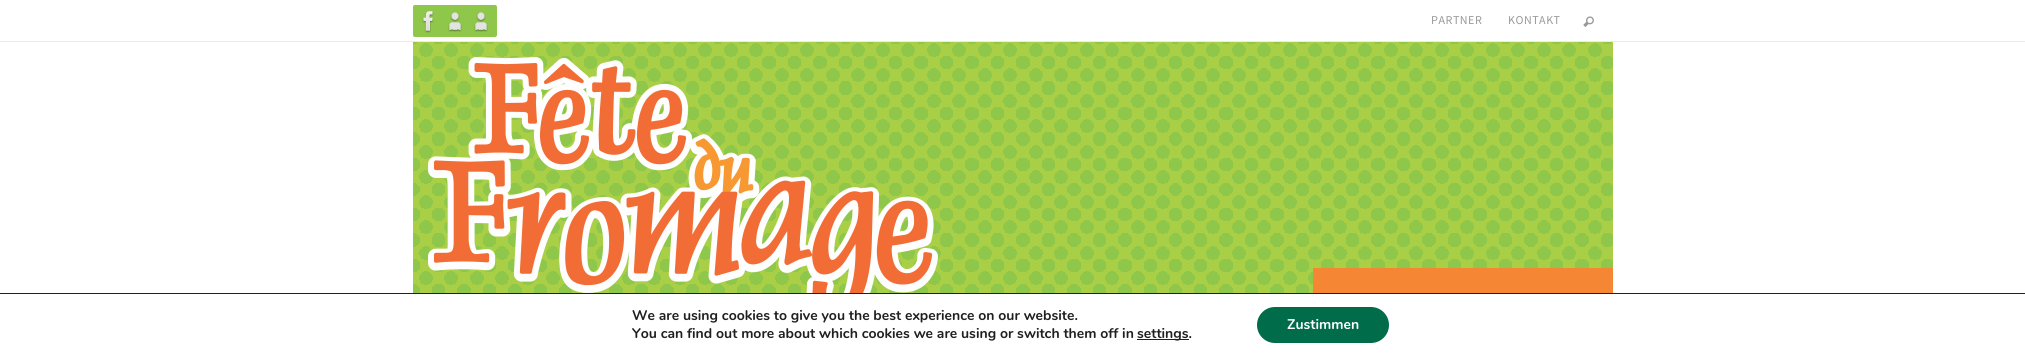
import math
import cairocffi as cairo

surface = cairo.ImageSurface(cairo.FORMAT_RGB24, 2025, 356)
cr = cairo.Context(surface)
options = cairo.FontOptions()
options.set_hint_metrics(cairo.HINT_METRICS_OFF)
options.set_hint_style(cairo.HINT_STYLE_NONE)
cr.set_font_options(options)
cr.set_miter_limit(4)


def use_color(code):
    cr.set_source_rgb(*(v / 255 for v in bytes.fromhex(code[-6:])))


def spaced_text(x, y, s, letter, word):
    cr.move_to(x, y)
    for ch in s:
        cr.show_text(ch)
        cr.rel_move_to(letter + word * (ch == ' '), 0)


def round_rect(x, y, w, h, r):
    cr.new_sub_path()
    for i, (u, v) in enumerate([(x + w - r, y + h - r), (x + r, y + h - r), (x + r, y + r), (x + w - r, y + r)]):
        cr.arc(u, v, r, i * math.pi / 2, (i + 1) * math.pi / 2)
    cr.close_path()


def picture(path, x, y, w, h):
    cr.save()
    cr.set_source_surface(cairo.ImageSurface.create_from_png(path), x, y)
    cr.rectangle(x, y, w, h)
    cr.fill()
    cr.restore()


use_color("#ffffff")
cr.paint()
use_color("#ebebeb")
cr.rectangle(0, 41, 2025, 1)
cr.fill()
use_color("#8fc74a")
round_rect(413, 5, 32, 32, 2)
cr.fill()
picture("img1.png", 422, 11, 12, 22)
round_rect(439, 5, 32, 32, 2)
cr.fill()
picture("img2.png", 448, 12, 14, 20)
round_rect(465, 5, 32, 32, 2)
cr.fill()
picture("img2.png", 474, 12, 14, 20)
cr.select_font_face("Source Sans Pro")
cr.set_font_size(12)
use_color("#999999")
spaced_text(1431, 24, "PARTNER", 0.5, 0)
spaced_text(1508, 24, "KONTAKT", 0.5, 0)
picture("img3.png", 1583, 16, 11, 11)
picture("img4.png", 413, 42, 1200, 251)
picture("img5.png", 428, 57, 510, 236)
use_color("#f58634")
cr.rectangle(1313, 268, 300, 25)
cr.fill()
use_color("#202020")
cr.rectangle(0, 293, 2025, 1)
cr.fill()
cr.select_font_face("Nunito", cairo.FONT_SLANT_NORMAL, cairo.FONT_WEIGHT_BOLD)
cr.set_font_size(14)
cr.move_to(632, 320)
cr.show_text("We are using cookies to give you the best experience on our website.")
cr.move_to(632, 338)
cr.show_text("You can find out more about which cookies we are using or switch them off in")
cr.rectangle(1137, 339, 52, 1)
cr.fill()
cr.move_to(1137, 338)
cr.show_text("settings.")
use_color("#006c4a")
round_rect(1257, 307, 132, 36, 18)
cr.fill()
use_color("#ffffff")
cr.move_to(1287, 329)
cr.show_text("Zustimmen")
surface.write_to_png("result.png")
